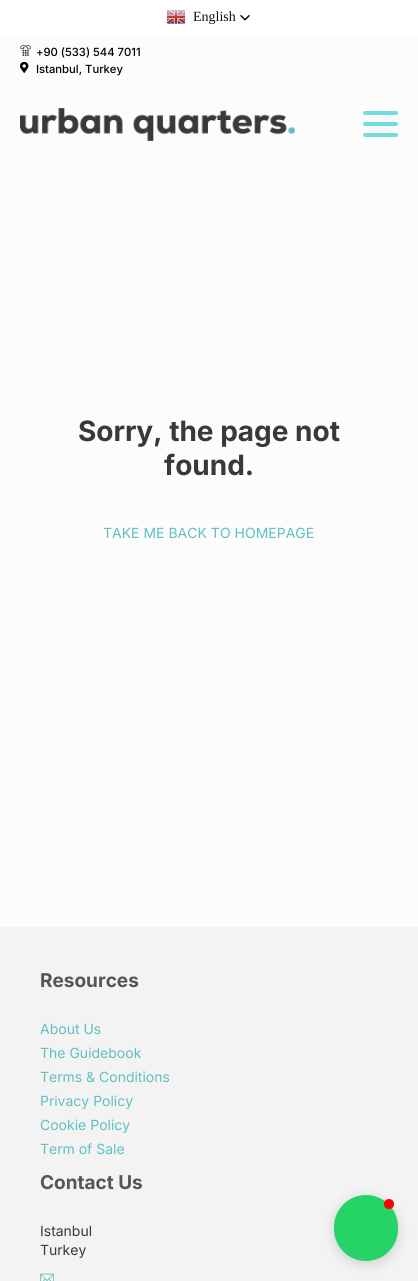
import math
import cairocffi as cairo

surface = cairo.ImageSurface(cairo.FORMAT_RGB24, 418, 1281)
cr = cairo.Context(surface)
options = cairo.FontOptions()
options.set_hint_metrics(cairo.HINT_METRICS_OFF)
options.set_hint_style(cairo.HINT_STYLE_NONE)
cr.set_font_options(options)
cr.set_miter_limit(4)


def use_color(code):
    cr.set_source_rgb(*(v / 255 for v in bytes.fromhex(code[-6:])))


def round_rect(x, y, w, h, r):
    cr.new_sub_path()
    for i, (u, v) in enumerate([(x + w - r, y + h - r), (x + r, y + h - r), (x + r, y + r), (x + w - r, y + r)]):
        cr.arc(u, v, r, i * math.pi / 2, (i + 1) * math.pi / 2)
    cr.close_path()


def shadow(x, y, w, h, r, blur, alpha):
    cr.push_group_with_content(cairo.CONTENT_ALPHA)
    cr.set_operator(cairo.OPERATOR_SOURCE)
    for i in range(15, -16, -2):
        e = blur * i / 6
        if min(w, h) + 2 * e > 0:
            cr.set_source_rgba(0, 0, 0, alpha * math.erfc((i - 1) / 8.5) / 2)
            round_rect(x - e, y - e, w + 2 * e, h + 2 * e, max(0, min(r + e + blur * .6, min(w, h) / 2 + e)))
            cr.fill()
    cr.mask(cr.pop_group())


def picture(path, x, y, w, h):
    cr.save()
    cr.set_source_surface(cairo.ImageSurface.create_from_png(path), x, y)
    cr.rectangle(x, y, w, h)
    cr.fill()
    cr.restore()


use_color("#ffffff")
cr.paint()
picture("img1.png", 167, 10, 18, 14)
gradient = cairo.LinearGradient(176, 10, 176, 24)
gradient.add_color_stop_rgba(0, 1, 1, 1, 0.7)
gradient.add_color_stop_rgba(1, 0, 0, 0, 0.15)
cr.set_source(gradient)
round_rect(167, 10, 18, 14, 2)
cr.fill()
round_rect(167.5, 10.5, 17, 13, 1.5)
cr.set_source_rgba(0.463, 0.463, 0.463, 0.1)
cr.set_line_width(1)
cr.stroke()
cr.select_font_face("Liberation Serif")
cr.set_font_size(14)
use_color("#111111")
cr.move_to(193, 21)
cr.show_text("English")
picture("img2.png", 240, 15, 10, 6)
use_color("#fcfcfc")
cr.rectangle(0, 34, 418, 893)
cr.fill()
picture("img3.png", 20, 45, 11, 11)
cr.select_font_face("Inter Medium")
cr.set_font_size(11.25)
use_color("#000000")
cr.move_to(36, 56)
cr.show_text("+90 (533) 544 7011")
picture("img4.png", 20, 62, 9, 11)
cr.move_to(36, 73)
cr.show_text("Istanbul, Turkey")
picture("img5.png", 20, 108, 275, 33)
use_color("#71dddd")
round_rect(363, 111, 35, 4, 2)
cr.fill()
round_rect(363, 122, 35, 4, 2)
cr.fill()
round_rect(363, 133, 35, 4, 2)
cr.fill()
cr.select_font_face("Inter", cairo.FONT_SLANT_NORMAL, cairo.FONT_WEIGHT_BOLD)
cr.set_font_size(28)
use_color("#373a3a")
cr.move_to(78, 441)
cr.show_text("Sorry, the page not")
cr.move_to(164, 475)
cr.show_text("found.")
cr.select_font_face("Inter")
cr.set_font_size(14)
use_color("#60c0c0")
cr.move_to(103, 538)
cr.show_text("TAKE ME BACK TO HOMEPAGE")
use_color("#f3f3f3")
cr.rectangle(0, 927, 418, 354)
cr.fill()
cr.select_font_face("Inter", cairo.FONT_SLANT_NORMAL, cairo.FONT_WEIGHT_BOLD)
cr.set_font_size(19)
use_color("#535656")
cr.move_to(40, 987)
cr.show_text("Resources")
cr.select_font_face("Inter")
cr.set_font_size(14)
use_color("#60c0c0")
cr.move_to(40, 1034)
cr.show_text("About Us")
cr.move_to(40, 1058)
cr.show_text("The Guidebook")
cr.move_to(40, 1082)
cr.show_text("Terms & Conditions")
cr.move_to(40, 1106)
cr.show_text("Privacy Policy")
cr.move_to(40, 1130)
cr.show_text("Cookie Policy")
cr.move_to(40, 1154)
cr.show_text("Term of Sale")
cr.select_font_face("Inter", cairo.FONT_SLANT_NORMAL, cairo.FONT_WEIGHT_BOLD)
cr.set_font_size(19)
use_color("#535656")
cr.move_to(40, 1189)
cr.show_text("Contact Us")
cr.select_font_face("Inter")
cr.set_font_size(14)
use_color("#373a3a")
cr.move_to(40, 1236)
cr.show_text("Istanbul")
cr.move_to(40, 1255)
cr.show_text("Turkey")
picture("img6.png", 40, 1273, 14, 8)
use_color("#000000")
shadow(334, 1198, 64, 66, 32, 6, 0.15)
use_color("#25d366")
round_rect(334, 1195, 64, 66, 32)
cr.fill()
use_color("#ff0000")
cr.arc(389, 1204, 5, 0, 2 * math.pi)
cr.fill()
surface.write_to_png("result.png")
